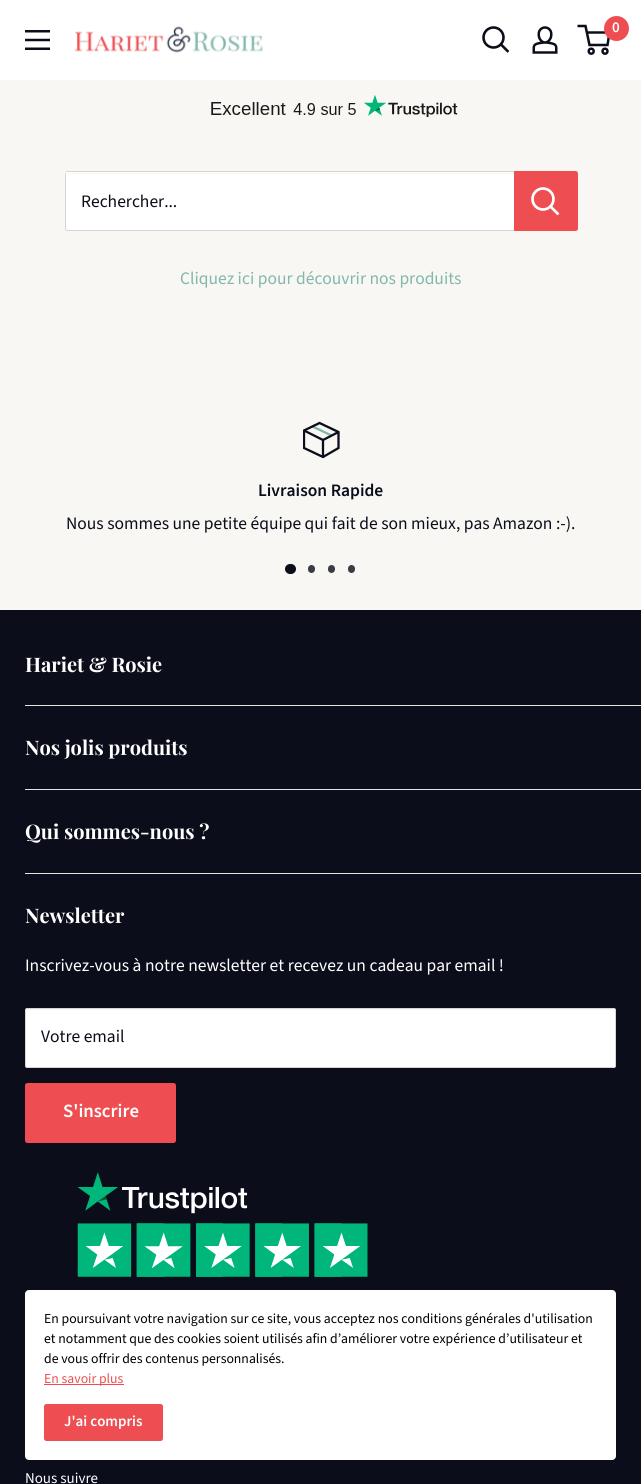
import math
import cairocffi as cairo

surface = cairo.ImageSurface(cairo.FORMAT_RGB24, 641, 1484)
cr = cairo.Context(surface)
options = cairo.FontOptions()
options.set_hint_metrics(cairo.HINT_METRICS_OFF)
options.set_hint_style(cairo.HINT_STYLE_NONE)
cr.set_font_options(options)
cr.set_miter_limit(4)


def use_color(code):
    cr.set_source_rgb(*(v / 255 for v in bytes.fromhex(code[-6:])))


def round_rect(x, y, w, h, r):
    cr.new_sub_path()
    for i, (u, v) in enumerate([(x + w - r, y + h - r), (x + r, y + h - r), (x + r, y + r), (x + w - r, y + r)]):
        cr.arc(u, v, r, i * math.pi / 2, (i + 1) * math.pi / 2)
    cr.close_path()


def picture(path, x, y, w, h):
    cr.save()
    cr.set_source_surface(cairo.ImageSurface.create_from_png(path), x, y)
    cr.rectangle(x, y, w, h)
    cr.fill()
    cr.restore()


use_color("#f9f7f4")
cr.paint()
use_color("#ffffff")
cr.rectangle(0, 0, 641, 80)
cr.fill()
picture("img1.png", 25, 30, 25, 20)
picture("img2.png", 75, 26, 188, 27)
cr.new_path()
cr.move_to(507.5, 51)
cr.line_to(501, 44.5)
use_color("#0b0e1a")
cr.set_line_width(2.6)
cr.set_line_cap(cairo.LINE_CAP_SQUARE)
cr.stroke()
cr.arc(493.5, 37.5, 10, 0, 2 * math.pi)
cr.set_line_cap(cairo.LINE_CAP_BUTT)
cr.stroke()
picture("img3.png", 532, 26, 26, 28)
cr.arc(591.2, 51.2, 2.5, 0, 2 * math.pi)
cr.set_line_width(2.5)
cr.stroke()
cr.arc(605, 51.2, 2.5, 0, 2 * math.pi)
cr.stroke()
cr.new_path()
cr.move_to(586.5, 32.5)
cr.line_to(609.5, 32.5)
cr.line_to(607.5, 45)
cr.line_to(589.5, 45)
cr.line_to(585.5, 26)
cr.line_to(577.5, 26)
cr.stroke()
use_color("#ee4e51")
cr.arc(616.5, 28.5, 12.5, 0, 2 * math.pi)
cr.fill()
cr.select_font_face("Source Sans Pro SemiBold")
cr.set_font_size(15)
use_color("#ffffff")
cr.move_to(612, 32)
cr.show_text("0")
picture("img4.png", 211, 95, 247, 22)
cr.new_path()
cr.move_to(67.5, 171)
cr.line_to(514, 171)
cr.line_to(514, 231)
cr.line_to(67.5, 231)
cr.curve_to(66, 231, 65, 230, 65, 228.5)
cr.line_to(65, 173.5)
cr.curve_to(65, 172, 66, 171, 67.5, 171)
cr.close_path()
cr.fill()
use_color("#f9f8f7")
cr.new_path()
cr.move_to(68, 174)
cr.line_to(514, 174)
cr.line_to(514, 173)
cr.line_to(67, 173)
cr.line_to(66, 174)
cr.line_to(66, 175)
cr.curve_to(66, 174, 67, 174, 68, 174)
cr.close_path()
cr.fill()
use_color("#dcd5cf")
cr.rectangle(66, 171, 448, 1)
cr.fill()
cr.rectangle(66, 230, 448, 1)
cr.fill()
cr.rectangle(65, 173, 1, 57)
cr.fill()
cr.select_font_face("Source Sans Pro")
cr.set_font_size(17.5)
use_color("#0b0e1a")
cr.move_to(81, 207)
cr.show_text("Rechercher...")
use_color("#ee4e51")
cr.new_path()
cr.move_to(514, 171)
cr.line_to(575.5, 171)
cr.curve_to(577, 171, 578, 172, 578, 173.5)
cr.line_to(578, 228.5)
cr.curve_to(578, 230, 577, 231, 575.5, 231)
cr.line_to(514, 231)
cr.close_path()
cr.fill()
cr.new_path()
cr.move_to(557.5, 213.5)
cr.line_to(550.5, 206.5)
use_color("#ffffff")
cr.set_line_width(2.7)
cr.set_line_cap(cairo.LINE_CAP_SQUARE)
cr.stroke()
cr.arc(543, 199, 10.5, 0, 2 * math.pi)
cr.set_line_cap(cairo.LINE_CAP_BUTT)
cr.stroke()
use_color("#80b8ac")
cr.move_to(180, 284)
cr.show_text("Cliquez ici pour découvrir nos produits")
cr.new_path()
cr.move_to(312.5, 426.5)
cr.line_to(331.5, 435.5)
cr.set_line_width(2.3)
cr.stroke()
cr.new_path()
cr.move_to(338.5, 432)
cr.line_to(323, 440)
cr.line_to(304, 430.5)
cr.move_to(323, 440)
cr.line_to(323, 457)
use_color("#0b0e1a")
cr.stroke()
cr.save()
cr.rectangle(303, 421, 37, 38)
cr.clip()
cr.new_path()
cr.move_to(338.5, 432)
cr.line_to(338.5, 448)
cr.line_to(323, 457)
cr.line_to(304, 448)
cr.line_to(304, 430.5)
cr.line_to(319.5, 423)
cr.close_path()
cr.set_line_cap(cairo.LINE_CAP_SQUARE)
cr.stroke()
cr.restore()
cr.select_font_face("Source Sans Pro SemiBold")
cr.move_to(258, 496)
cr.show_text("Livraison Rapide")
cr.select_font_face("Source Sans Pro")
cr.move_to(66, 529)
cr.show_text("Nous sommes une petite équipe qui fait de son mieux, pas Amazon :-).")
round_rect(285, 564, 11, 10, 5)
cr.fill()
use_color("#3b3d46")
round_rect(308, 565, 7, 8, 3.5)
cr.fill()
round_rect(328, 565, 7, 8, 3.5)
cr.fill()
round_rect(348, 565, 7, 8, 3.5)
cr.fill()
use_color("#0b0e1a")
cr.rectangle(0, 610, 641, 874)
cr.fill()
use_color("#e7e2de")
cr.rectangle(25, 705, 616, 1)
cr.fill()
cr.select_font_face("Playfair Display", cairo.FONT_SLANT_NORMAL, cairo.FONT_WEIGHT_BOLD)
cr.set_font_size(20)
use_color("#ffffff")
cr.move_to(25, 672)
cr.show_text("Hariet & Rosie")
use_color("#e7e2de")
cr.rectangle(25, 789, 616, 1)
cr.fill()
use_color("#ffffff")
cr.move_to(25, 755)
cr.show_text("Nos jolis produits")
use_color("#e7e2de")
cr.rectangle(25, 873, 616, 1)
cr.fill()
use_color("#ffffff")
cr.move_to(25, 839)
cr.show_text("Qui sommes-nous ?")
cr.move_to(25, 923)
cr.show_text("Newsletter")
cr.select_font_face("Source Sans Pro")
cr.set_font_size(17.5)
cr.move_to(25, 971)
cr.show_text("Inscrivez-vous à notre newsletter et recevez un cadeau par email !")
round_rect(25, 1008, 591, 60, 2.5)
cr.fill()
use_color("#f9f8f7")
cr.new_path()
cr.move_to(28, 1010)
cr.line_to(614, 1010)
cr.line_to(615, 1011)
cr.curve_to(615, 1010, 615, 1009, 614, 1009)
cr.line_to(27, 1009)
cr.line_to(26, 1010)
cr.line_to(26, 1011)
cr.close_path()
cr.fill()
round_rect(25.5, 1008.5, 590, 59, 2)
use_color("#dcd5cf")
cr.set_line_width(1)
cr.stroke()
use_color("#0b0e1a")
cr.move_to(41, 1042)
cr.show_text("Votre email")
use_color("#ee4e51")
round_rect(25, 1083, 151, 60, 2.5)
cr.fill()
cr.select_font_face("Source Sans Pro SemiBold")
cr.set_font_size(18.75)
use_color("#ffffff")
cr.move_to(63, 1117)
cr.show_text("S'inscrire")
picture("img5.png", 77, 1172, 291, 105)
cr.select_font_face("Source Sans Pro")
cr.set_font_size(15)
cr.move_to(25, 1483)
cr.show_text("Nous suivre")
round_rect(25, 1290, 591, 170, 4)
cr.fill()
cr.set_font_size(13.75)
use_color("#000000")
cr.move_to(44, 1323)
cr.show_text("En poursuivant votre navigation sur ce site, vous acceptez nos conditions générales d'utilisation")
cr.move_to(44, 1343)
cr.show_text("et notamment que des cookies soient utilisés afin d’améliorer votre expérience d’utilisateur et")
cr.move_to(44, 1363)
cr.show_text("de vous offrir des contenus personnalisés.")
use_color("#ee4e51")
cr.rectangle(44, 1384, 80, 1)
cr.fill()
cr.move_to(44, 1383)
cr.show_text("En savoir plus")
round_rect(44, 1404, 119, 37, 2.5)
cr.fill()
cr.select_font_face("Source Sans Pro SemiBold")
cr.set_font_size(15)
use_color("#ffffff")
cr.move_to(64, 1426)
cr.show_text("J'ai compris")
surface.write_to_png("result.png")
